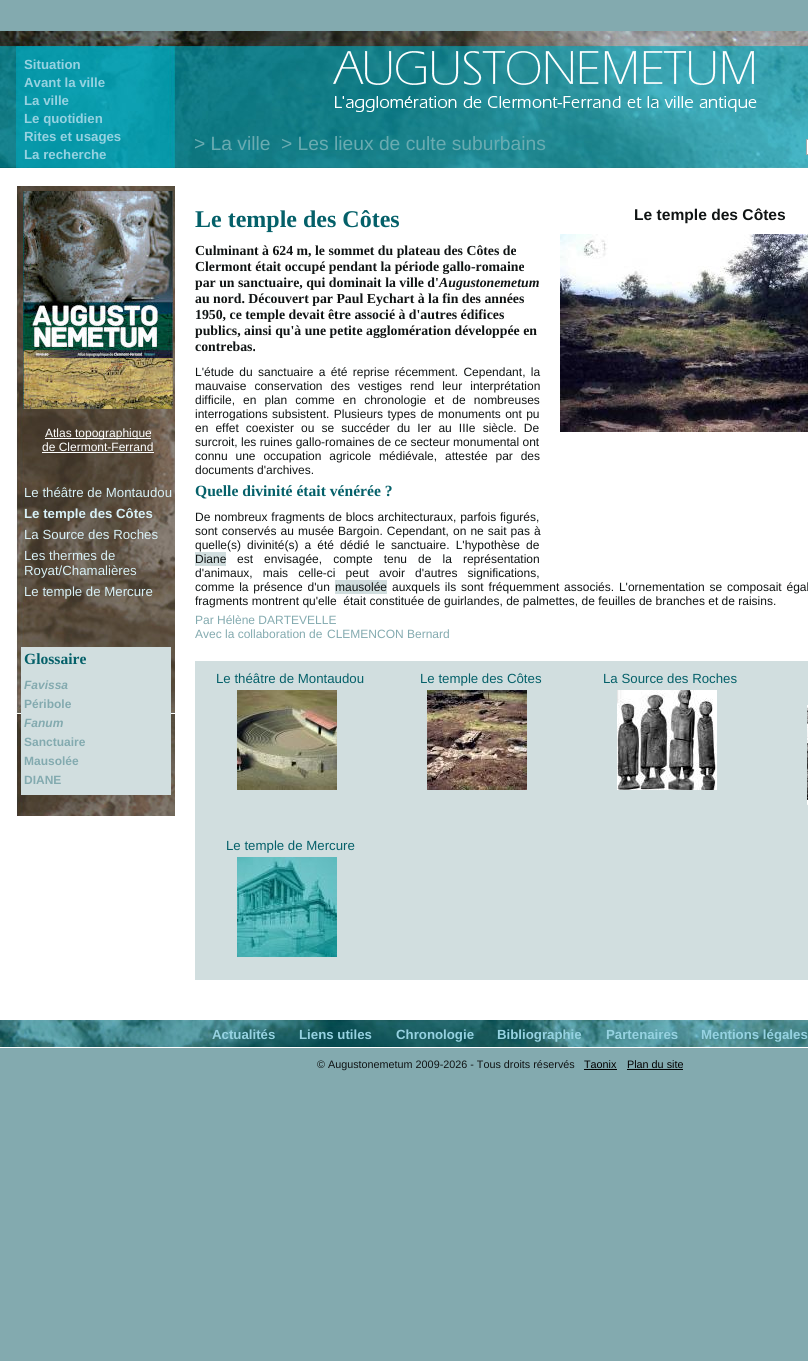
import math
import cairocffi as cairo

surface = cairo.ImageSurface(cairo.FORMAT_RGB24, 808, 1361)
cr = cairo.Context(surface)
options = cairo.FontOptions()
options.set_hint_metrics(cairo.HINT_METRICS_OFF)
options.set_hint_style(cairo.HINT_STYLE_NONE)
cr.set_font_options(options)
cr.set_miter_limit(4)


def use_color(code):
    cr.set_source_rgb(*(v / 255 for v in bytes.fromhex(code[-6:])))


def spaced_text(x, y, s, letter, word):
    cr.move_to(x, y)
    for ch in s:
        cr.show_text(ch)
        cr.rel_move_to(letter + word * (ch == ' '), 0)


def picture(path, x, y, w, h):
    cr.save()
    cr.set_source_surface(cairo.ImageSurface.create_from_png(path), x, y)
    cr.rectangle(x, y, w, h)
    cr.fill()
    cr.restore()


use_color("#83aaaf")
cr.paint()
use_color("#ffffff")
cr.rectangle(0, 168, 808, 880)
cr.fill()
picture("img1.png", 0, 31, 808, 137)
cr.select_font_face("Liberation Sans", cairo.FONT_SLANT_NORMAL, cairo.FONT_WEIGHT_BOLD)
cr.set_font_size(13.25)
use_color("#96d2e1")
cr.move_to(24, 69)
cr.show_text("Situation")
cr.move_to(24, 87)
cr.show_text("Avant la ville")
cr.move_to(24, 105)
cr.show_text("La ville")
cr.move_to(24, 123)
cr.show_text("Le quotidien")
cr.move_to(24, 141)
cr.show_text("Rites et usages")
cr.move_to(24, 159)
cr.show_text("La recherche")
picture("img2.png", 333, 51, 424, 61)
cr.select_font_face("Liberation Sans")
cr.set_font_size(19.25)
use_color("#6aabb1")
cr.move_to(194, 150)
cr.show_text("> La ville")
cr.move_to(281, 150)
cr.show_text("> Les lieux de culte suburbains")
use_color("#ffffff")
cr.rectangle(806.5, 139.5, 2, 15)
cr.fill_preserve()
use_color("#a7a7a7")
cr.set_line_width(1)
cr.stroke()
picture("img3.png", 16, 186, 159, 630)
picture("img4.png", 23, 191, 150, 218)
use_color("#ffffff")
cr.rectangle(45, 438, 106, 1)
cr.fill()
cr.set_font_size(12)
cr.move_to(45, 437)
cr.show_text("Atlas topographique")
cr.move_to(42, 451)
cr.show_text("de Clermont-Ferrand")
cr.rectangle(42, 452, 112, 1)
cr.fill()
cr.set_font_size(13.25)
use_color("#d8f1f7")
cr.move_to(24, 497)
cr.show_text("Le théâtre de Montaudou")
cr.select_font_face("Liberation Sans", cairo.FONT_SLANT_NORMAL, cairo.FONT_WEIGHT_BOLD)
cr.move_to(24, 518)
cr.show_text("Le temple des Côtes")
cr.select_font_face("Liberation Sans")
cr.move_to(24, 539)
cr.show_text("La Source des Roches")
cr.move_to(24, 560)
cr.show_text("Les thermes de")
cr.move_to(24, 575)
cr.show_text("Royat/Chamalières")
cr.move_to(24, 596)
cr.show_text("Le temple de Mercure")
use_color("#d1dedf")
cr.rectangle(21, 647, 150, 148)
cr.fill()
cr.select_font_face("Liberation Serif", cairo.FONT_SLANT_NORMAL, cairo.FONT_WEIGHT_BOLD)
cr.set_font_size(15.6)
use_color("#046069")
cr.move_to(24, 664)
cr.show_text("Glossaire")
cr.select_font_face("Liberation Sans", cairo.FONT_SLANT_ITALIC, cairo.FONT_WEIGHT_BOLD)
cr.set_font_size(12)
use_color("#83aaaf")
cr.move_to(24, 689)
cr.show_text("Favissa")
cr.select_font_face("Liberation Sans", cairo.FONT_SLANT_NORMAL, cairo.FONT_WEIGHT_BOLD)
cr.move_to(24, 708)
cr.show_text("Péribole")
cr.select_font_face("Liberation Sans", cairo.FONT_SLANT_ITALIC, cairo.FONT_WEIGHT_BOLD)
cr.move_to(24, 727)
cr.show_text("Fanum")
cr.select_font_face("Liberation Sans", cairo.FONT_SLANT_NORMAL, cairo.FONT_WEIGHT_BOLD)
cr.move_to(24, 746)
cr.show_text("Sanctuaire")
cr.move_to(24, 765)
cr.show_text("Mausolée")
cr.move_to(24, 784)
cr.show_text("DIANE")
cr.select_font_face("Liberation Serif", cairo.FONT_SLANT_NORMAL, cairo.FONT_WEIGHT_BOLD)
cr.set_font_size(24)
use_color("#046069")
cr.move_to(195, 227)
cr.show_text("Le temple des Côtes")
cr.select_font_face("Liberation Sans", cairo.FONT_SLANT_NORMAL, cairo.FONT_WEIGHT_BOLD)
cr.set_font_size(15.6)
use_color("#101414")
cr.move_to(634, 220)
cr.show_text("Le temple des Côtes")
picture("img5.png", 560, 234, 248, 198)
cr.select_font_face("Liberation Serif", cairo.FONT_SLANT_NORMAL, cairo.FONT_WEIGHT_BOLD)
cr.set_font_size(13.8)
cr.move_to(195, 255)
cr.show_text("Culminant à 624 m, le sommet du plateau des Côtes de")
cr.move_to(195, 271)
cr.show_text("Clermont était occupé pendant la période gallo-romaine")
cr.move_to(195, 287)
cr.show_text("par un sanctuaire, qui dominait la ville d'")
cr.select_font_face("Liberation Serif", cairo.FONT_SLANT_ITALIC, cairo.FONT_WEIGHT_BOLD)
cr.move_to(439, 287)
cr.show_text("Augustonemetum")
cr.select_font_face("Liberation Serif", cairo.FONT_SLANT_NORMAL, cairo.FONT_WEIGHT_BOLD)
cr.move_to(195, 303)
cr.show_text("au nord. Découvert par Paul Eychart à la fin des années")
cr.move_to(195, 319)
cr.show_text("1950, ce temple devait être associé à d'autres édifices")
cr.move_to(195, 335)
cr.show_text("publics, ainsi qu'à une petite agglomération développée en")
cr.move_to(195, 351)
cr.show_text("contrebas.")
cr.select_font_face("Liberation Sans")
cr.set_font_size(12)
spaced_text(195, 376, "L'étude du sanctuaire a été reprise récemment. Cependant, la", 0, 2)
spaced_text(195, 390, "mauvaise conservation des vestiges rend leur interprétation", 0, 4.75)
spaced_text(195, 404, "difficile, en plan comme en chronologie et de nombreuses", 0, 4.75)
spaced_text(195, 418, "interrogations subsistent. Plusieurs types de monuments ont pu", 0, 1)
spaced_text(195, 432, "en effet coexister ou se succéder du Ier au IIIe siècle. De", 0, 3.75)
cr.move_to(195, 446)
cr.show_text("surcroit, les ruines gallo-romaines de ce secteur monumental ont")
spaced_text(195, 460, "connu une occupation agricole médiévale, attestée par des", 0, 4.5)
cr.move_to(195, 474)
cr.show_text("documents d'archives.")
cr.select_font_face("Liberation Serif", cairo.FONT_SLANT_NORMAL, cairo.FONT_WEIGHT_BOLD)
cr.set_font_size(15.6)
use_color("#046069")
cr.move_to(195, 496)
cr.show_text("Quelle divinité était vénérée ?")
cr.select_font_face("Liberation Sans")
cr.set_font_size(12)
use_color("#101414")
spaced_text(195, 521, "De nombreux fragments de blocs architecturaux, parfois figurés,", 0, 0.5)
spaced_text(195, 535, "sont conservés au musée Bargoin. Cependant, on ne sait pas à", 0, 0.75)
spaced_text(195, 549, "quelle(s) divinité(s) a été dédié le sanctuaire. L'hypothèse de", 0, 2.75)
use_color("#d1dedf")
cr.rectangle(195, 552, 31, 14)
cr.fill()
use_color("#101414")
cr.move_to(195, 563)
cr.show_text("Diane")
spaced_text(237, 563, "est envisagée, compte tenu de la représentation", 0, 7.75)
spaced_text(195, 577, "d'animaux, mais celle-ci peut avoir d'autres significations,", 0, 6.75)
spaced_text(195, 591, "comme la présence d'un", 0, 1.5)
use_color("#d1dedf")
cr.rectangle(335, 580, 52, 14)
cr.fill()
use_color("#101414")
cr.move_to(335, 591)
cr.show_text("mausolée")
spaced_text(392, 591, "auxquels ils sont fréquemment associés. L'ornementation se composait égal", 0, 1.5)
cr.move_to(195, 605)
cr.show_text("fragments montrent qu'elle  était constituée de guirlandes, de palmettes, de feuilles de branches et de raisins.")
use_color("#83aaaf")
cr.move_to(195, 624)
cr.show_text("Par Hélène DARTEVELLE")
cr.move_to(195, 638)
cr.show_text("Avec la collaboration de")
cr.move_to(327, 638)
cr.show_text("CLEMENCON Bernard")
use_color("#d1dedf")
cr.rectangle(195, 661, 613, 319)
cr.fill()
cr.set_font_size(13.25)
use_color("#046069")
cr.move_to(216, 683)
cr.show_text("Le théâtre de Montaudou")
picture("img6.png", 237, 690, 100, 100)
cr.move_to(420, 683)
cr.show_text("Le temple des Côtes")
picture("img7.png", 427, 690, 100, 100)
cr.move_to(603, 683)
cr.show_text("La Source des Roches")
picture("img8.png", 617, 690, 100, 100)
picture("img9.png", 807, 705, 1, 100)
cr.move_to(226, 850)
cr.show_text("Le temple de Mercure")
picture("img10.png", 237, 857, 100, 100)
picture("img11.png", 0, 1020, 808, 27)
cr.select_font_face("Liberation Sans", cairo.FONT_SLANT_NORMAL, cairo.FONT_WEIGHT_BOLD)
use_color("#96d2e1")
cr.move_to(212, 1039)
cr.show_text("Actualités")
cr.move_to(299, 1039)
cr.show_text("Liens utiles")
cr.move_to(396, 1039)
cr.show_text("Chronologie")
cr.move_to(497, 1039)
cr.show_text("Bibliographie")
cr.move_to(606, 1039)
cr.show_text("Partenaires")
cr.move_to(701, 1039)
cr.show_text("Mentions légales")
cr.select_font_face("Liberation Sans")
cr.set_font_size(10.8)
use_color("#101414")
cr.move_to(317, 1068)
cr.show_text("© Augustonemetum 2009-2026 - Tous droits réservés")
use_color("#000000")
cr.move_to(584, 1068)
cr.show_text("Taonix")
cr.rectangle(584, 1069, 33, 1)
cr.fill()
cr.move_to(627, 1068)
cr.show_text("Plan du site")
cr.rectangle(627, 1069, 56, 1)
cr.fill()
surface.write_to_png("result.png")
